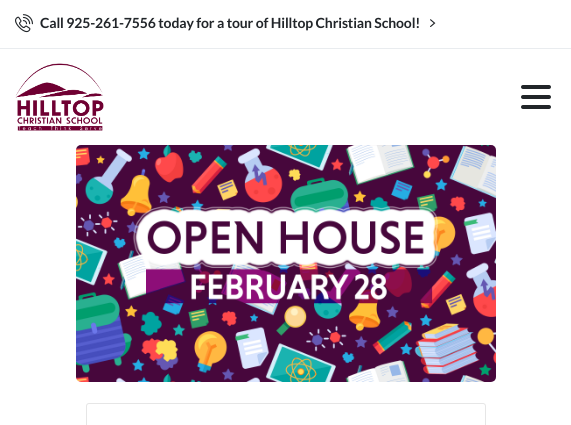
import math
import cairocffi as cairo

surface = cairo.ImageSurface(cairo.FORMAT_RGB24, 571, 425)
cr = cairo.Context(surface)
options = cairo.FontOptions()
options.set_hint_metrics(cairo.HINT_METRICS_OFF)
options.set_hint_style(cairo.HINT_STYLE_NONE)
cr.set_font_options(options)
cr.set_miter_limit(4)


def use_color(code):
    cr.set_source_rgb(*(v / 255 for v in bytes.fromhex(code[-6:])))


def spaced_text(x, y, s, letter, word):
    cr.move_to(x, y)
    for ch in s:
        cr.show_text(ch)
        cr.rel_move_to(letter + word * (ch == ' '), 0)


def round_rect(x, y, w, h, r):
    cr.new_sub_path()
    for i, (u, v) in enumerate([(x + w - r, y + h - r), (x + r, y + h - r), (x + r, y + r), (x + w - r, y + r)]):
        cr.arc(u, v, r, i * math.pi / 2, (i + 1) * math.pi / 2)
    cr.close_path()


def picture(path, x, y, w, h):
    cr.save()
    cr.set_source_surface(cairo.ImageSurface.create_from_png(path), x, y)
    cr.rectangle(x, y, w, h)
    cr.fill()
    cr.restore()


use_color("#ffffff")
cr.paint()
picture("img1.png", 15, 14, 18, 19)
cr.select_font_face("Lato", cairo.FONT_SLANT_NORMAL, cairo.FONT_WEIGHT_BOLD)
cr.set_font_size(14)
use_color("#212529")
spaced_text(40, 28, "Call 925-261-7556 today for a tour of Hilltop Christian School!", -0.15, 0)
picture("img2.png", 430, 19, 6, 8)
use_color("#e9ecef")
cr.rectangle(0, 48, 571, 1)
cr.fill()
picture("img3.png", 15, 63, 89, 68)
use_color("#212529")
round_rect(521, 95, 30, 4, 2)
cr.fill()
round_rect(521, 85, 30, 4, 2)
cr.fill()
round_rect(521, 105, 30, 4, 2)
cr.fill()
picture("img4.png", 76, 145, 420, 237)
round_rect(86.5, 403.5, 399, 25, 2.5)
use_color("#e6e6e6")
cr.set_line_width(1)
cr.stroke()
surface.write_to_png("result.png")
